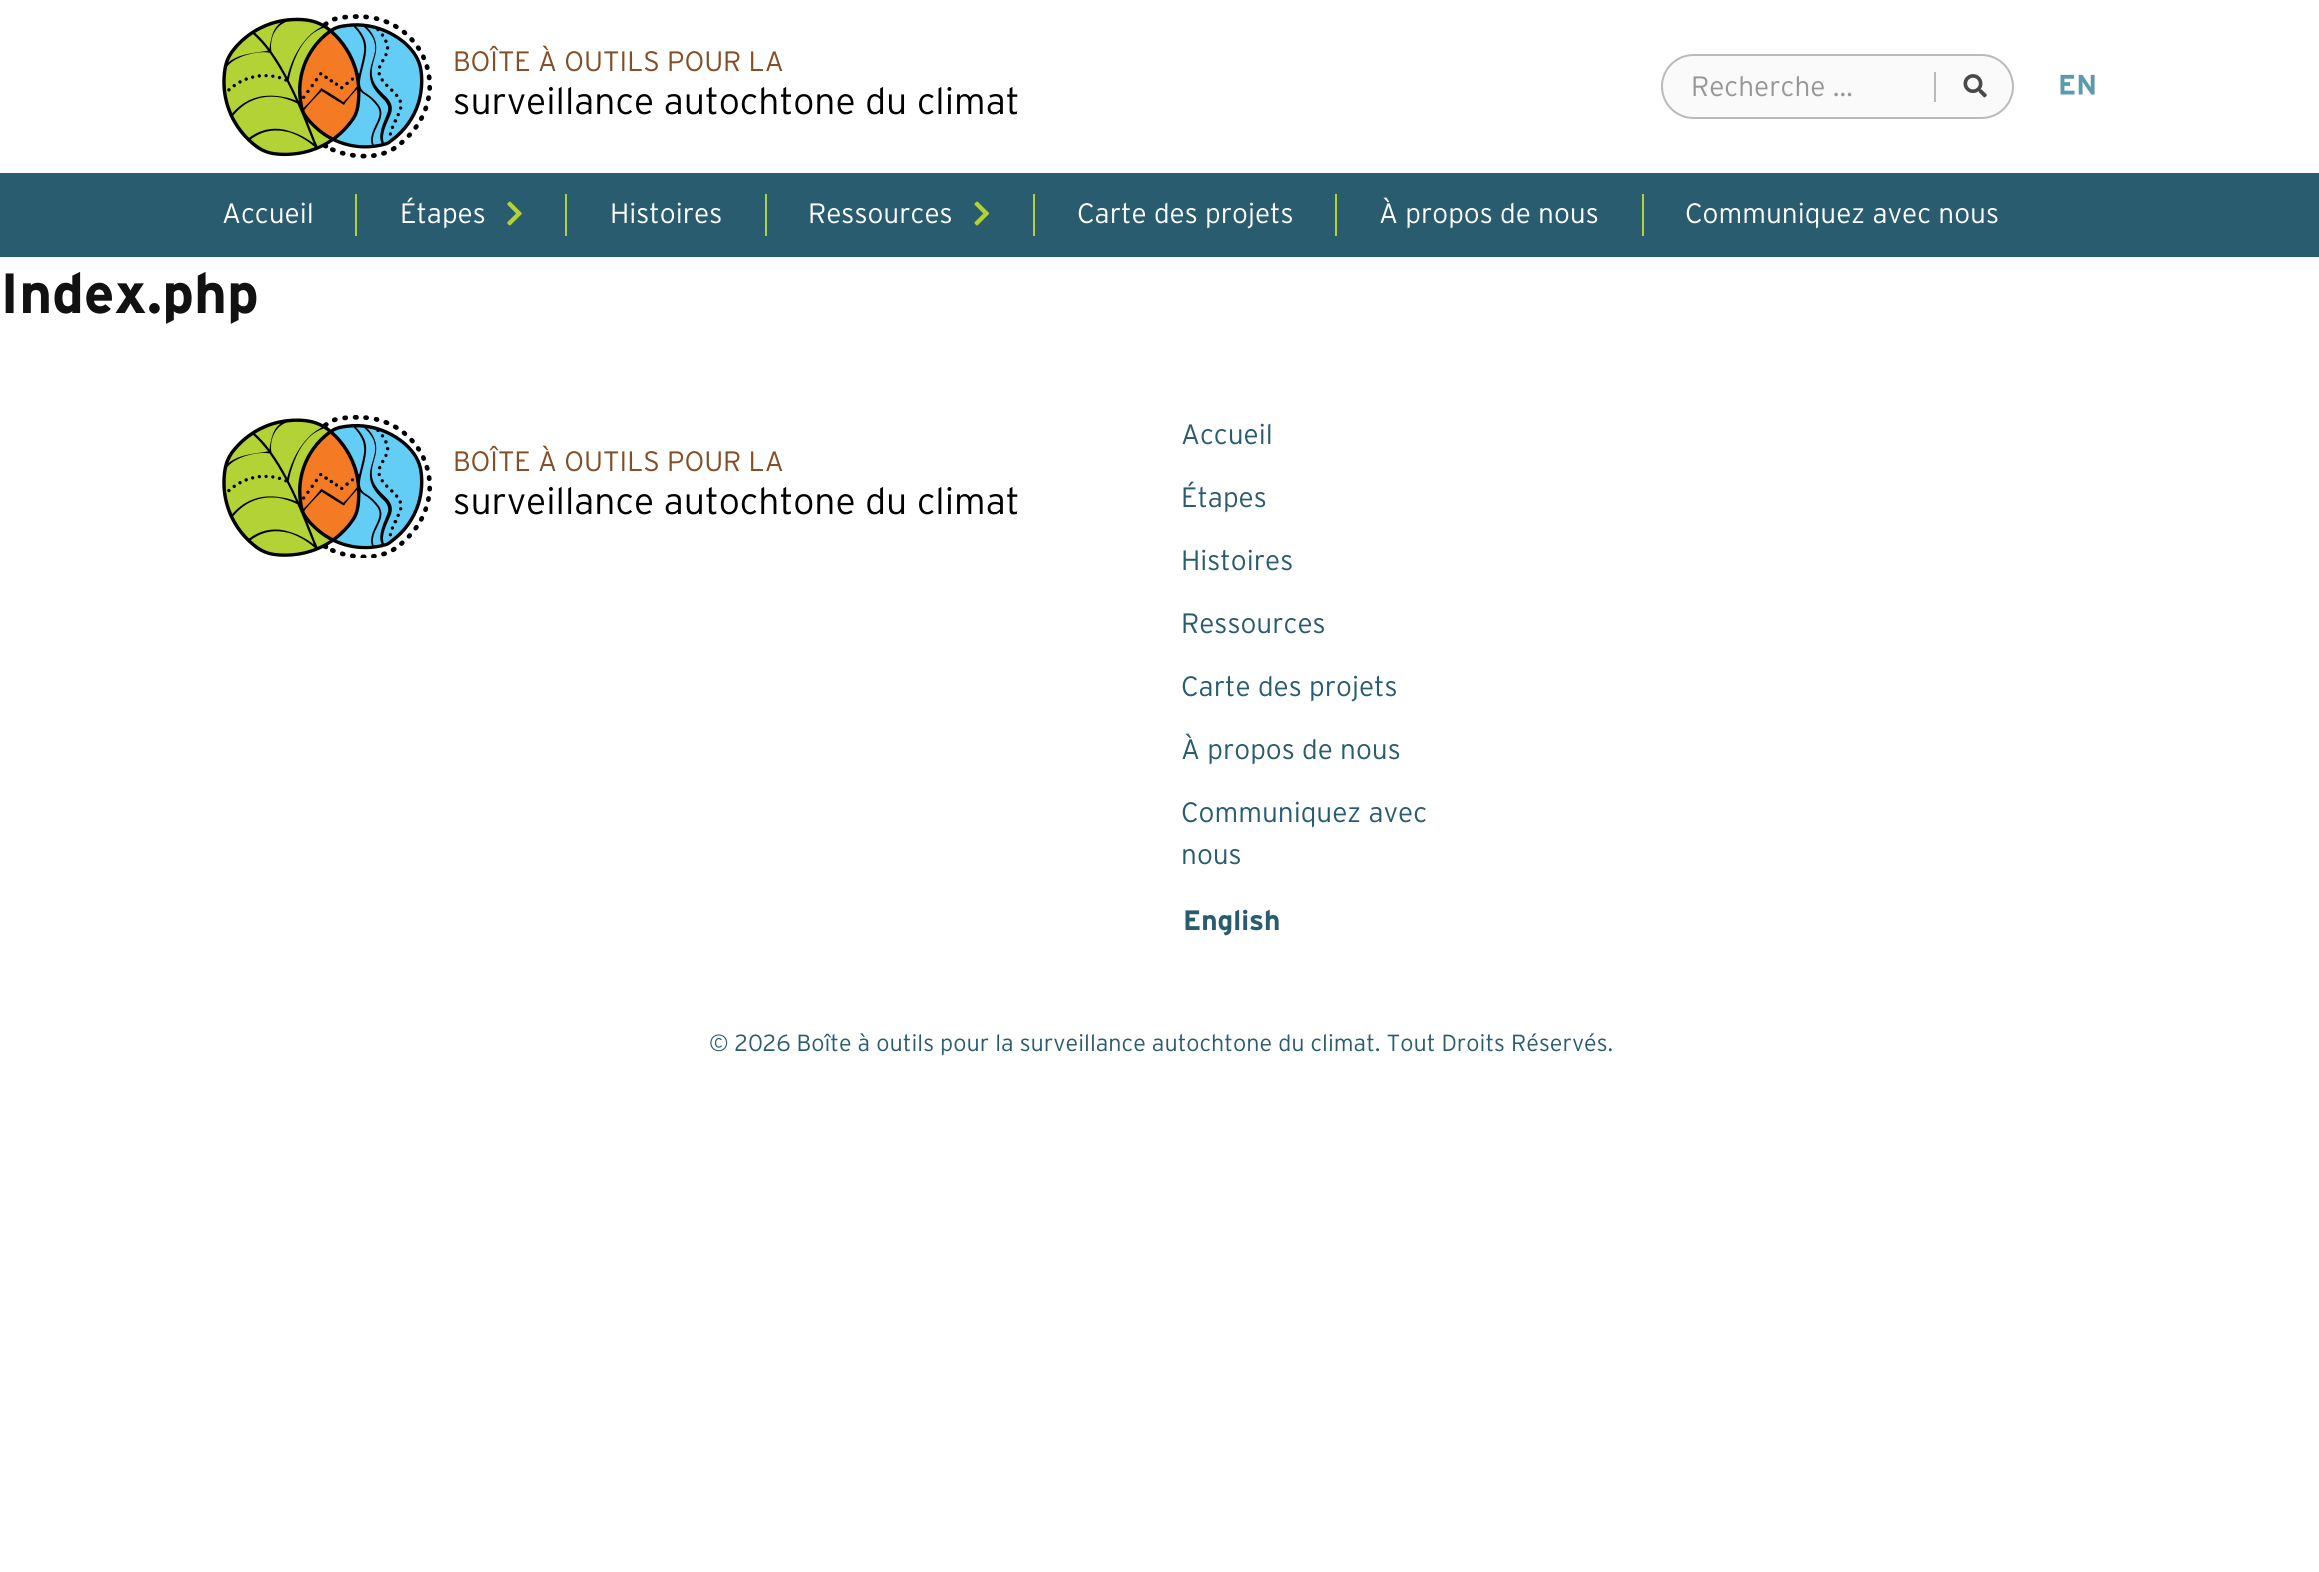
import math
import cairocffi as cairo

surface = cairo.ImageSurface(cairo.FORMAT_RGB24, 2319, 1572)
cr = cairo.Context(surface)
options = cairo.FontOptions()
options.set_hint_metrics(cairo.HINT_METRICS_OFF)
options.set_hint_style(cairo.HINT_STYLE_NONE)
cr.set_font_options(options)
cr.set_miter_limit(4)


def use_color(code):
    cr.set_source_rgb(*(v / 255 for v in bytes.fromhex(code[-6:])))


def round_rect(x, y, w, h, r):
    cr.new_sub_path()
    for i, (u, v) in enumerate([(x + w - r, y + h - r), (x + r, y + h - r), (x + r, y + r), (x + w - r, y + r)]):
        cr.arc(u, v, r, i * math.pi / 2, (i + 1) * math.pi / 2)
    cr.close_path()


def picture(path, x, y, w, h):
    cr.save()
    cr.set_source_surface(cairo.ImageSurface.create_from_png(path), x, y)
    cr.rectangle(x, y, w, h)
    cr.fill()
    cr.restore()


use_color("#ffffff")
cr.paint()
picture("img1.png", 222, 14, 210, 145)
cr.select_font_face("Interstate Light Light")
cr.set_font_size(28)
use_color("#844e27")
cr.move_to(453, 71)
cr.show_text("BOÎTE À OUTILS POUR LA")
cr.set_font_size(37.25)
use_color("#000000")
cr.move_to(453, 114)
cr.show_text("surveillance autochtone du climat")
use_color("#fafafa")
round_rect(1662, 55, 351, 63, 31.5)
cr.fill_preserve()
use_color("#bababa")
cr.stroke()
cr.set_font_size(28)
use_color("#979797")
cr.move_to(1691, 96)
cr.show_text("Recherche …")
use_color("#bababa")
cr.rectangle(1934, 72, 2, 30)
cr.fill()
picture("img2.png", 1963, 74, 24, 24)
picture("img3.png", 2060, 74, 35, 21)
use_color("#295c6f")
cr.rectangle(0, 173, 2319, 84)
cr.fill()
use_color("#ffffff")
cr.move_to(222, 223)
cr.show_text("Accueil")
use_color("#b2d235")
cr.rectangle(355, 194, 2, 42)
cr.fill()
use_color("#ffffff")
cr.move_to(400, 223)
cr.show_text("Étapes")
picture("img4.png", 507, 201, 15, 25)
use_color("#b2d235")
cr.rectangle(565, 194, 2, 42)
cr.fill()
use_color("#ffffff")
cr.move_to(610, 223)
cr.show_text("Histoires")
use_color("#b2d235")
cr.rectangle(765, 194, 2, 42)
cr.fill()
use_color("#ffffff")
cr.move_to(808, 223)
cr.show_text("Ressources")
picture("img5.png", 974, 201, 15, 25)
use_color("#b2d235")
cr.rectangle(1033, 194, 2, 42)
cr.fill()
use_color("#ffffff")
cr.move_to(1077, 223)
cr.show_text("Carte des projets")
use_color("#b2d235")
cr.rectangle(1335, 194, 2, 42)
cr.fill()
use_color("#ffffff")
cr.move_to(1379, 223)
cr.show_text("À propos de nous")
use_color("#b2d235")
cr.rectangle(1642, 194, 2, 42)
cr.fill()
use_color("#ffffff")
cr.move_to(1685, 223)
cr.show_text("Communiquez avec nous")
cr.select_font_face("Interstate", cairo.FONT_SLANT_NORMAL, cairo.FONT_WEIGHT_BOLD)
cr.set_font_size(56.5)
use_color("#111111")
cr.move_to(0, 313)
cr.show_text("Index.php")
picture("img6.png", 222, 415, 210, 143)
cr.select_font_face("Interstate Light Light")
cr.set_font_size(28)
use_color("#844e27")
cr.move_to(453, 471)
cr.show_text("BOÎTE À OUTILS POUR LA")
cr.set_font_size(37.25)
use_color("#000000")
cr.move_to(453, 514)
cr.show_text("surveillance autochtone du climat")
cr.set_font_size(28)
use_color("#295c6f")
cr.move_to(1181, 444)
cr.show_text("Accueil")
cr.move_to(1181, 507)
cr.show_text("Étapes")
cr.move_to(1181, 570)
cr.show_text("Histoires")
cr.move_to(1181, 633)
cr.show_text("Ressources")
cr.move_to(1181, 696)
cr.show_text("Carte des projets")
cr.move_to(1181, 759)
cr.show_text("À propos de nous")
cr.move_to(1181, 822)
cr.show_text("Communiquez avec")
cr.move_to(1181, 864)
cr.show_text("nous")
cr.select_font_face("Interstate", cairo.FONT_SLANT_NORMAL, cairo.FONT_WEIGHT_BOLD)
cr.move_to(1183, 930)
cr.show_text("English")
cr.select_font_face("Interstate Light Light")
cr.set_font_size(23.35)
cr.move_to(709, 1051)
cr.show_text("© 2026 Boîte à outils pour la surveillance autochtone du climat. Tout Droits Réservés.")
surface.write_to_png("result.png")
